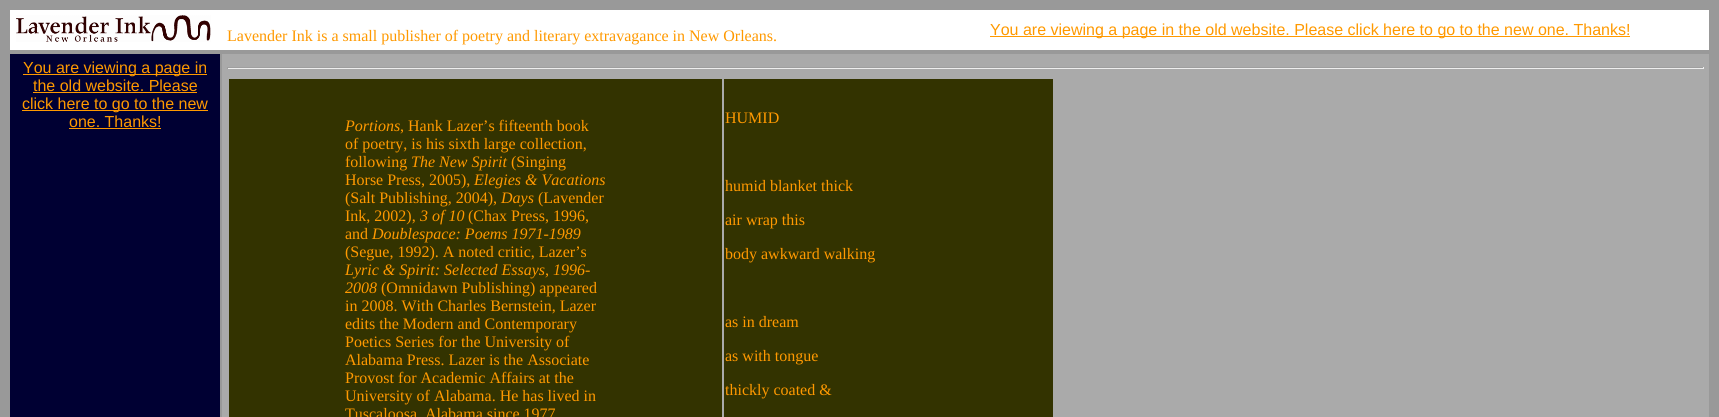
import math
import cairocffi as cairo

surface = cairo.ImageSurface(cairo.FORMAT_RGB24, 1719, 417)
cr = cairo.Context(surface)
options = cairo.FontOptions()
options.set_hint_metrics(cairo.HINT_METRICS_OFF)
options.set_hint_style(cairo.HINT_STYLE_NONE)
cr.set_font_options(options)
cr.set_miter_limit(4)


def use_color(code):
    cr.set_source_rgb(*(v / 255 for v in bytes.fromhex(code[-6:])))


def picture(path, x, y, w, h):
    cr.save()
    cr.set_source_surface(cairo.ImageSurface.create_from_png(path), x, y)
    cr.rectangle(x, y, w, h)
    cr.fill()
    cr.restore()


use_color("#999999")
cr.paint()
use_color("#ffffff")
cr.rectangle(10, 10, 1699, 40)
cr.fill()
picture("img1.png", 16, 15, 195, 27)
cr.select_font_face("Liberation Serif")
cr.set_font_size(16)
use_color("#ff9900")
cr.move_to(227, 41)
cr.show_text("Lavender Ink is a small publisher of poetry and literary extravagance in New Orleans.")
cr.rectangle(990, 36, 640, 1)
cr.fill()
cr.select_font_face("Liberation Sans")
cr.move_to(990, 35)
cr.show_text("You are viewing a page in the old website. Please click here to go to the new one. Thanks!")
use_color("#000033")
cr.rectangle(10, 54, 210, 363)
cr.fill()
use_color("#ff9900")
cr.rectangle(23, 74, 184, 1)
cr.fill()
cr.move_to(23, 73)
cr.show_text("You are viewing a page in")
cr.move_to(33, 91)
cr.show_text("the old website. Please")
cr.rectangle(33, 92, 164, 1)
cr.fill()
cr.rectangle(22, 110, 186, 1)
cr.fill()
cr.move_to(22, 109)
cr.show_text("click here to go to the new")
cr.move_to(69, 127)
cr.show_text("one. Thanks!")
cr.rectangle(69, 128, 92, 1)
cr.fill()
use_color("#aaaaaa")
cr.rectangle(222, 54, 1487, 363)
cr.fill()
use_color("#9f9f9f")
cr.rectangle(227, 67, 1477, 1)
cr.fill()
use_color("#eeeeee")
cr.rectangle(1703, 67, 1, 2)
cr.fill()
cr.rectangle(227, 68, 1477, 1)
cr.fill()
use_color("#9f9f9f")
cr.rectangle(227, 67, 1, 2)
cr.fill()
use_color("#333300")
cr.rectangle(229, 79, 493, 338)
cr.fill()
cr.select_font_face("Liberation Serif", cairo.FONT_SLANT_ITALIC)
use_color("#ff9900")
cr.move_to(345, 131)
cr.show_text("Portions")
cr.select_font_face("Liberation Serif")
cr.move_to(400, 131)
cr.show_text(", Hank Lazer’s fifteenth book")
cr.move_to(345, 149)
cr.show_text("of poetry, is his sixth large collection,")
cr.move_to(345, 167)
cr.show_text("following")
cr.select_font_face("Liberation Serif", cairo.FONT_SLANT_ITALIC)
cr.move_to(411, 167)
cr.show_text("The New Spirit")
cr.select_font_face("Liberation Serif")
cr.move_to(511, 167)
cr.show_text("(Singing")
cr.move_to(345, 185)
cr.show_text("Horse Press, 2005),")
cr.select_font_face("Liberation Serif", cairo.FONT_SLANT_ITALIC)
cr.move_to(474, 185)
cr.show_text("Elegies & Vacations")
cr.select_font_face("Liberation Serif")
cr.move_to(345, 203)
cr.show_text("(Salt Publishing, 2004),")
cr.select_font_face("Liberation Serif", cairo.FONT_SLANT_ITALIC)
cr.move_to(501, 203)
cr.show_text("Days")
cr.select_font_face("Liberation Serif")
cr.move_to(538, 203)
cr.show_text("(Lavender")
cr.move_to(345, 221)
cr.show_text("Ink, 2002),")
cr.select_font_face("Liberation Serif", cairo.FONT_SLANT_ITALIC)
cr.move_to(420, 221)
cr.show_text("3 of 10")
cr.select_font_face("Liberation Serif")
cr.move_to(468, 221)
cr.show_text("(Chax Press, 1996,")
cr.move_to(345, 239)
cr.show_text("and")
cr.select_font_face("Liberation Serif", cairo.FONT_SLANT_ITALIC)
cr.move_to(372, 239)
cr.show_text("Doublespace: Poems 1971-1989")
cr.select_font_face("Liberation Serif")
cr.move_to(345, 257)
cr.show_text("(Segue, 1992). A noted critic, Lazer’s")
cr.select_font_face("Liberation Serif", cairo.FONT_SLANT_ITALIC)
cr.move_to(345, 275)
cr.show_text("Lyric & Spirit: Selected Essays, 1996-")
cr.move_to(345, 293)
cr.show_text("2008")
cr.select_font_face("Liberation Serif")
cr.move_to(381, 293)
cr.show_text("(Omnidawn Publishing) appeared")
cr.move_to(345, 311)
cr.show_text("in 2008. With Charles Bernstein, Lazer")
cr.move_to(345, 329)
cr.show_text("edits the Modern and Contemporary")
cr.move_to(345, 347)
cr.show_text("Poetics Series for the University of")
cr.move_to(345, 365)
cr.show_text("Alabama Press. Lazer is the Associate")
cr.move_to(345, 383)
cr.show_text("Provost for Academic Affairs at the")
cr.move_to(345, 401)
cr.show_text("University of Alabama. He has lived in")
cr.move_to(345, 419)
cr.show_text("Tuscaloosa, Alabama since 1977")
use_color("#333300")
cr.rectangle(724, 79, 329, 338)
cr.fill()
use_color("#ff9900")
cr.move_to(725, 123)
cr.show_text("HUMID")
cr.move_to(725, 191)
cr.show_text("humid blanket thick")
cr.move_to(725, 225)
cr.show_text("air wrap this")
cr.move_to(725, 259)
cr.show_text("body awkward walking")
cr.move_to(725, 327)
cr.show_text("as in dream")
cr.move_to(725, 361)
cr.show_text("as with tongue")
cr.move_to(725, 395)
cr.show_text("thickly coated &")
surface.write_to_png("result.png")
